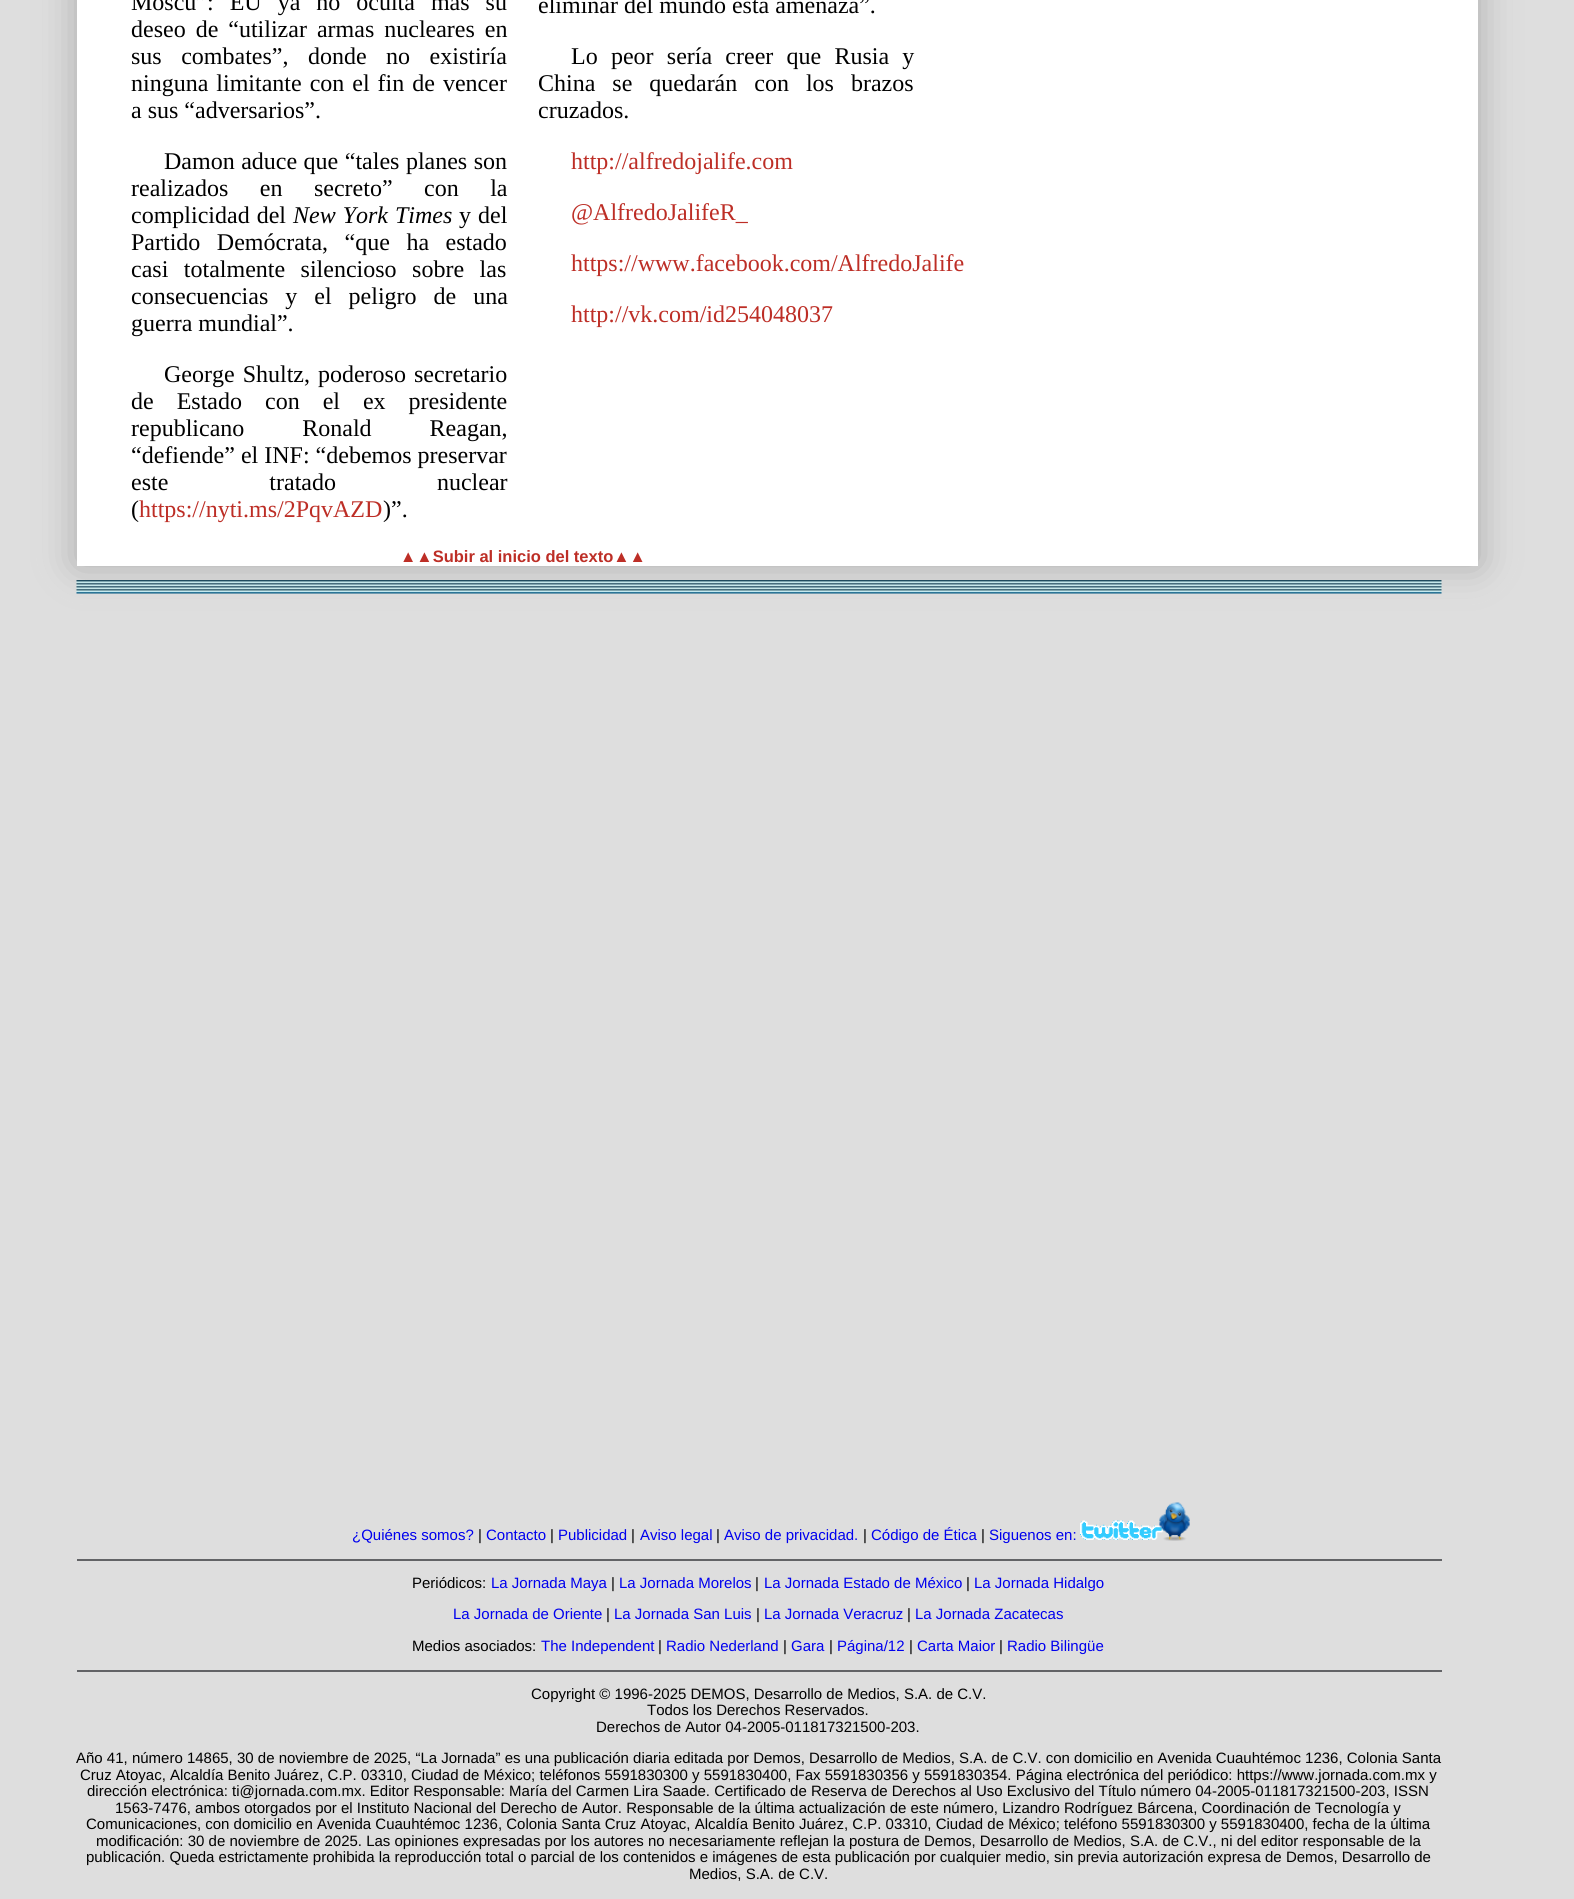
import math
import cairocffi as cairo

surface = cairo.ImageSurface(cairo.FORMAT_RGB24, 1574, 1899)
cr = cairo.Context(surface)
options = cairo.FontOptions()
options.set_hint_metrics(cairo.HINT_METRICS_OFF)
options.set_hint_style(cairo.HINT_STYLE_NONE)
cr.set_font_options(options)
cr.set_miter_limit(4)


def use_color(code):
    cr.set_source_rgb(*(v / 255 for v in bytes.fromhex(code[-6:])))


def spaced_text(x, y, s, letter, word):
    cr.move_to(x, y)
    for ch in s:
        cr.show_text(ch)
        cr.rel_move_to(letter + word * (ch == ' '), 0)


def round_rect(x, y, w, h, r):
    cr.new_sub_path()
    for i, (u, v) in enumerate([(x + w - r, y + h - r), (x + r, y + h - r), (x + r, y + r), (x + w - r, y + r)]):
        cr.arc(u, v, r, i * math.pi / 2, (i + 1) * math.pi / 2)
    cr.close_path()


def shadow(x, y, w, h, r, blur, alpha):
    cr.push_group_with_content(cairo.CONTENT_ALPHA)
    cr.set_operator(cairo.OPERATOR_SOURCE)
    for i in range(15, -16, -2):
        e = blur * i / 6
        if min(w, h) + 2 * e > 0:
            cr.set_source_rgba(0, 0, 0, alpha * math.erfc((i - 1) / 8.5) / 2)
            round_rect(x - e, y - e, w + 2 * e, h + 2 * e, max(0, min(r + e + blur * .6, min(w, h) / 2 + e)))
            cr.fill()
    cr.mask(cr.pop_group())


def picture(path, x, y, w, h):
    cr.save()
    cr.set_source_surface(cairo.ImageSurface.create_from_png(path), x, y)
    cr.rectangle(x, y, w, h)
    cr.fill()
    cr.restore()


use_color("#dedede")
cr.paint()
use_color("#aaaaaa")
shadow(77, -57, 1401, 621, 0, 19, 1)
use_color("#ffffff")
cr.rectangle(77, 0, 1401, 566)
cr.fill()
cr.select_font_face("Liberation Serif")
cr.set_font_size(24)
use_color("#000000")
spaced_text(131, 10, "Moscú”: EU ya no oculta más su", 0, 10)
spaced_text(131, 37, "deseo de “utilizar armas nucleares en", 0, 4)
spaced_text(131, 64, "sus combates”, donde no existiría", 0, 13.5)
spaced_text(131, 91, "ninguna limitante con el fin de vencer", 0, 2)
cr.move_to(131, 118)
cr.show_text("a sus “adversarios”.")
spaced_text(164, 169, "Damon aduce que “tales planes son", 0, 0.5)
spaced_text(131, 196, "realizados en secreto” con la", 0, 25.5)
spaced_text(131, 223, "complicidad del", 0, 1)
cr.select_font_face("Liberation Serif", cairo.FONT_SLANT_ITALIC)
spaced_text(293, 223, "New York Times", 0, 1)
cr.select_font_face("Liberation Serif")
spaced_text(459, 223, "y del", 0, 1)
spaced_text(131, 250, "Partido Demócrata, “que ha estado", 0, 10.5)
spaced_text(131, 277, "casi totalmente silencioso sobre las", 0, 9.5)
spaced_text(131, 304, "consecuencias y el peligro de una", 0, 11)
cr.move_to(131, 331)
cr.show_text("guerra mundial”.")
spaced_text(164, 382, "George Shultz, poderoso secretario", 0, 2)
spaced_text(131, 409, "de Estado con el ex presidente", 0, 17)
spaced_text(131, 436, "republicano Ronald Reagan,", 0, 52)
cr.move_to(131, 463)
cr.show_text("“defiende” el INF: “debemos preservar")
spaced_text(131, 490, "este tratado nuclear", 0, 95)
cr.move_to(131, 517)
cr.show_text("(")
use_color("#bd2e26")
cr.move_to(139, 517)
cr.show_text("https://nyti.ms/2PqvAZD")
use_color("#000000")
cr.move_to(383, 517)
cr.show_text(")”.")
cr.move_to(538, 13)
cr.show_text("eliminar del mundo esta amenaza”.")
spaced_text(571, 64, "Lo peor sería creer que Rusia y", 0, 7.25)
spaced_text(538, 91, "China se quedarán con los brazos", 0, 11)
cr.move_to(538, 118)
cr.show_text("cruzados.")
use_color("#bd2e26")
cr.move_to(571, 169)
cr.show_text("http://alfredojalife.com")
cr.move_to(571, 220)
cr.show_text("@AlfredoJalifeR_")
cr.move_to(571, 271)
cr.show_text("https://www.facebook.com/AlfredoJalife")
cr.move_to(571, 322)
cr.show_text("http://vk.com/id254048037")
cr.select_font_face("Liberation Sans", cairo.FONT_SLANT_NORMAL, cairo.FONT_WEIGHT_BOLD)
cr.set_font_size(16.5)
cr.move_to(400, 562)
cr.show_text("▲▲Subir al inicio del texto▲▲")
picture("img1.png", 76, 580, 1366, 14)
cr.select_font_face("Liberation Sans")
cr.set_font_size(15)
use_color("#0000ee")
cr.move_to(352, 1540)
cr.show_text("¿Quiénes somos?")
use_color("#000000")
cr.move_to(478, 1540)
cr.show_text("|")
use_color("#0000ee")
cr.move_to(486, 1540)
cr.show_text("Contacto")
use_color("#000000")
cr.move_to(550, 1540)
cr.show_text("|")
use_color("#0000ee")
cr.move_to(558, 1540)
cr.show_text("Publicidad")
use_color("#000000")
cr.move_to(631, 1540)
cr.show_text("|")
use_color("#0000ee")
cr.move_to(640, 1540)
cr.show_text("Aviso legal")
use_color("#000000")
cr.move_to(716, 1540)
cr.show_text("|")
use_color("#0000ee")
cr.move_to(724, 1540)
cr.show_text("Aviso de privacidad.")
use_color("#000000")
cr.move_to(863, 1540)
cr.show_text("|")
use_color("#0000ee")
cr.move_to(871, 1540)
cr.show_text("Código de Ética")
use_color("#000000")
cr.move_to(981, 1540)
cr.show_text("|")
use_color("#0000ee")
cr.move_to(989, 1540)
cr.show_text("Siguenos en:")
picture("img2.png", 1080, 1520, 84, 20)
picture("img3.png", 1159, 1502, 31, 39)
use_color("#626366")
cr.rectangle(77, 1559, 1365, 2)
cr.fill()
use_color("#000000")
cr.move_to(412, 1588)
cr.show_text("Periódicos:")
use_color("#0000ee")
cr.move_to(491, 1588)
cr.show_text("La Jornada Maya")
use_color("#000000")
cr.move_to(611, 1588)
cr.show_text("|")
use_color("#0000ee")
cr.move_to(619, 1588)
cr.show_text("La Jornada Morelos")
use_color("#000000")
cr.move_to(755, 1588)
cr.show_text("|")
use_color("#0000ee")
cr.move_to(764, 1588)
cr.show_text("La Jornada Estado de México")
use_color("#000000")
cr.move_to(966, 1588)
cr.show_text("|")
use_color("#0000ee")
cr.move_to(974, 1588)
cr.show_text("La Jornada Hidalgo")
cr.move_to(453, 1619)
cr.show_text("La Jornada de Oriente")
use_color("#000000")
cr.move_to(606, 1619)
cr.show_text("|")
use_color("#0000ee")
cr.move_to(614, 1619)
cr.show_text("La Jornada San Luis")
use_color("#000000")
cr.move_to(756, 1619)
cr.show_text("|")
use_color("#0000ee")
cr.move_to(764, 1619)
cr.show_text("La Jornada Veracruz")
use_color("#000000")
cr.move_to(907, 1619)
cr.show_text("|")
use_color("#0000ee")
cr.move_to(915, 1619)
cr.show_text("La Jornada Zacatecas")
use_color("#000000")
cr.move_to(412, 1651)
cr.show_text("Medios asociados:")
use_color("#0000ee")
cr.move_to(541, 1651)
cr.show_text("The Independent")
use_color("#000000")
cr.move_to(658, 1651)
cr.show_text("|")
use_color("#0000ee")
cr.move_to(666, 1651)
cr.show_text("Radio Nederland")
use_color("#000000")
cr.move_to(783, 1651)
cr.show_text("|")
use_color("#0000ee")
cr.move_to(791, 1651)
cr.show_text("Gara")
use_color("#000000")
cr.move_to(829, 1651)
cr.show_text("|")
use_color("#0000ee")
cr.move_to(837, 1651)
cr.show_text("Página/12")
use_color("#000000")
cr.move_to(909, 1651)
cr.show_text("|")
use_color("#0000ee")
cr.move_to(917, 1651)
cr.show_text("Carta Maior")
use_color("#000000")
cr.move_to(999, 1651)
cr.show_text("|")
use_color("#0000ee")
cr.move_to(1007, 1651)
cr.show_text("Radio Bilingüe")
use_color("#626366")
cr.rectangle(77, 1670, 1365, 2)
cr.fill()
use_color("#000000")
cr.move_to(531, 1699)
cr.show_text("Copyright © 1996-2025 DEMOS, Desarrollo de Medios, S.A. de C.V.")
cr.move_to(647, 1715)
cr.show_text("Todos los Derechos Reservados.")
cr.move_to(596, 1732)
cr.show_text("Derechos de Autor 04-2005-011817321500-203.")
cr.move_to(76, 1763)
cr.show_text("Año 41, número 14865, 30 de noviembre de 2025, “La Jornada” es una publicación diaria editada por Demos, Desarrollo de Medios, S.A. de C.V. con domicilio en Avenida Cuauhtémoc 1236, Colonia Santa")
cr.move_to(80, 1780)
cr.show_text("Cruz Atoyac, Alcaldía Benito Juárez, C.P. 03310, Ciudad de México; teléfonos 5591830300 y 5591830400, Fax 5591830356 y 5591830354. Página electrónica del periódico: https://www.jornada.com.mx y")
cr.move_to(87, 1796)
cr.show_text("dirección electrónica: ti@jornada.com.mx. Editor Responsable: María del Carmen Lira Saade. Certificado de Reserva de Derechos al Uso Exclusivo del Título número 04-2005-011817321500-203, ISSN")
cr.move_to(115, 1813)
cr.show_text("1563-7476, ambos otorgados por el Instituto Nacional del Derecho de Autor. Responsable de la última actualización de este número, Lizandro Rodríguez Bárcena, Coordinación de Tecnología y")
cr.move_to(86, 1829)
cr.show_text("Comunicaciones, con domicilio en Avenida Cuauhtémoc 1236, Colonia Santa Cruz Atoyac, Alcaldía Benito Juárez, C.P. 03310, Ciudad de México; teléfono 5591830300 y 5591830400, fecha de la última")
cr.move_to(96, 1846)
cr.show_text("modificación: 30 de noviembre de 2025. Las opiniones expresadas por los autores no necesariamente reflejan la postura de Demos, Desarrollo de Medios, S.A. de C.V., ni del editor responsable de la")
cr.move_to(86, 1862)
cr.show_text("publicación. Queda estrictamente prohibida la reproducción total o parcial de los contenidos e imágenes de esta publicación por cualquier medio, sin previa autorización expresa de Demos, Desarrollo de")
cr.move_to(689, 1879)
cr.show_text("Medios, S.A. de C.V.")
surface.write_to_png("result.png")
